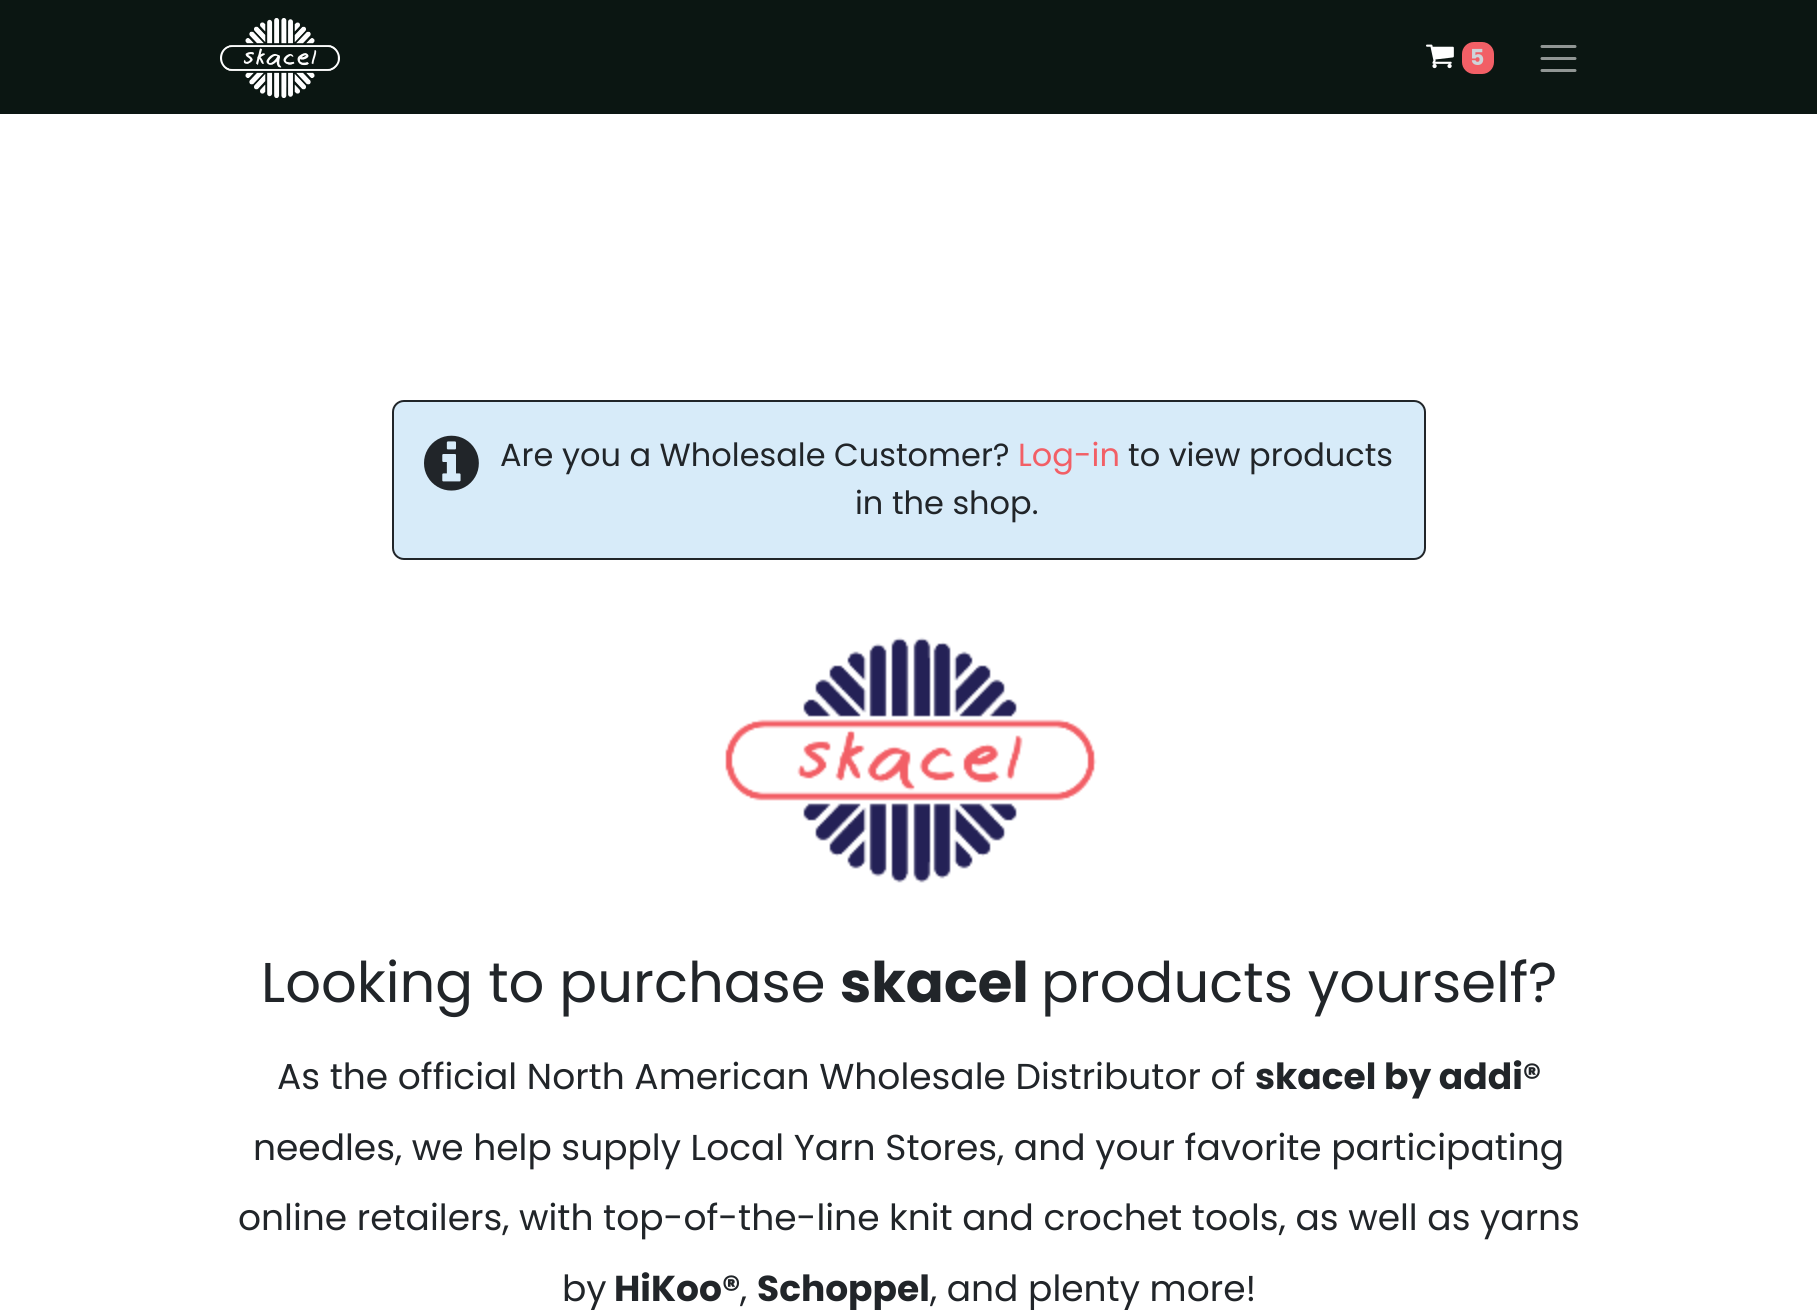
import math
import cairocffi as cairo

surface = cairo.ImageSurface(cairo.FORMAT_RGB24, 1817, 1310)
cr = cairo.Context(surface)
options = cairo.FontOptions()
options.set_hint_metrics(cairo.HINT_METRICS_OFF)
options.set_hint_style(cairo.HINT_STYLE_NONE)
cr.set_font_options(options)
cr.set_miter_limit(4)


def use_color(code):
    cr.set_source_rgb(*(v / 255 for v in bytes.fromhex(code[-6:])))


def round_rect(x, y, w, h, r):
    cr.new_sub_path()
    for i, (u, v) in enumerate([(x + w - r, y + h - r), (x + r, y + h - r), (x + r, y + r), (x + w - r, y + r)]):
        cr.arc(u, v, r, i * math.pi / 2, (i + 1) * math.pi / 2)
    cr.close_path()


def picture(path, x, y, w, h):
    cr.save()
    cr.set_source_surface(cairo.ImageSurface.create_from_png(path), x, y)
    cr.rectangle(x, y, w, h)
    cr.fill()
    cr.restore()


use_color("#ffffff")
cr.paint()
use_color("#0b1612")
cr.rectangle(0, 0, 1817, 114)
cr.fill()
picture("img1.png", 220, 18, 120, 80)
picture("img2.png", 1426, 44, 28, 25)
use_color("#f25f66")
round_rect(1462, 42, 32, 32, 12)
cr.fill()
cr.select_font_face("Poppins", cairo.FONT_SLANT_NORMAL, cairo.FONT_WEIGHT_BOLD)
cr.set_font_size(22)
use_color("#ced4da")
cr.move_to(1470, 65)
cr.show_text("5")
cr.new_path()
cr.move_to(1542, 46.5)
cr.line_to(1575, 46.5)
cr.move_to(1542, 58.5)
cr.line_to(1575, 58.5)
cr.move_to(1542, 70.5)
cr.line_to(1575, 70.5)
use_color("#919694")
cr.set_line_width(3)
cr.set_line_cap(cairo.LINE_CAP_ROUND)
cr.stroke()
use_color("#d7ebf9")
round_rect(393, 401, 1032, 158, 11)
cr.fill_preserve()
use_color("#212529")
cr.set_line_width(2)
cr.set_line_cap(cairo.LINE_CAP_BUTT)
cr.stroke()
picture("img3.png", 424, 435, 55, 56)
cr.select_font_face("Poppins")
cr.set_font_size(32)
cr.move_to(500, 466)
cr.show_text("Are you a Wholesale Customer?")
use_color("#f25f66")
cr.move_to(1018, 466)
cr.show_text("Log-in")
use_color("#212529")
cr.move_to(1128, 466)
cr.show_text("to view products")
cr.move_to(855, 514)
cr.show_text("in the shop.")
picture("img4.png", 725, 637, 372, 246)
cr.set_font_size(56)
cr.move_to(261, 1002)
cr.show_text("Looking to purchase")
cr.select_font_face("Poppins", cairo.FONT_SLANT_NORMAL, cairo.FONT_WEIGHT_BOLD)
cr.move_to(840, 1002)
cr.show_text("skacel")
cr.select_font_face("Poppins")
cr.move_to(1041, 1002)
cr.show_text("products yourself?")
cr.set_font_size(36)
cr.move_to(277, 1089)
cr.show_text("As the official North American Wholesale Distributor of")
cr.select_font_face("Poppins", cairo.FONT_SLANT_NORMAL, cairo.FONT_WEIGHT_BOLD)
cr.move_to(1255, 1089)
cr.show_text("skacel by addi®")
cr.select_font_face("Poppins")
cr.move_to(253, 1160)
cr.show_text("needles, we help supply Local Yarn Stores, and your favorite participating")
cr.move_to(238, 1230)
cr.show_text("online retailers, with top-of-the-line knit and crochet tools, as well as yarns")
cr.move_to(562, 1301)
cr.show_text("by")
cr.select_font_face("Poppins", cairo.FONT_SLANT_NORMAL, cairo.FONT_WEIGHT_BOLD)
cr.move_to(614, 1301)
cr.show_text("HiKoo®")
cr.select_font_face("Poppins")
cr.move_to(740, 1301)
cr.show_text(",")
cr.select_font_face("Poppins", cairo.FONT_SLANT_NORMAL, cairo.FONT_WEIGHT_BOLD)
cr.move_to(757, 1301)
cr.show_text("Schoppel")
cr.select_font_face("Poppins")
cr.move_to(930, 1301)
cr.show_text(", and plenty more!")
surface.write_to_png("result.png")
